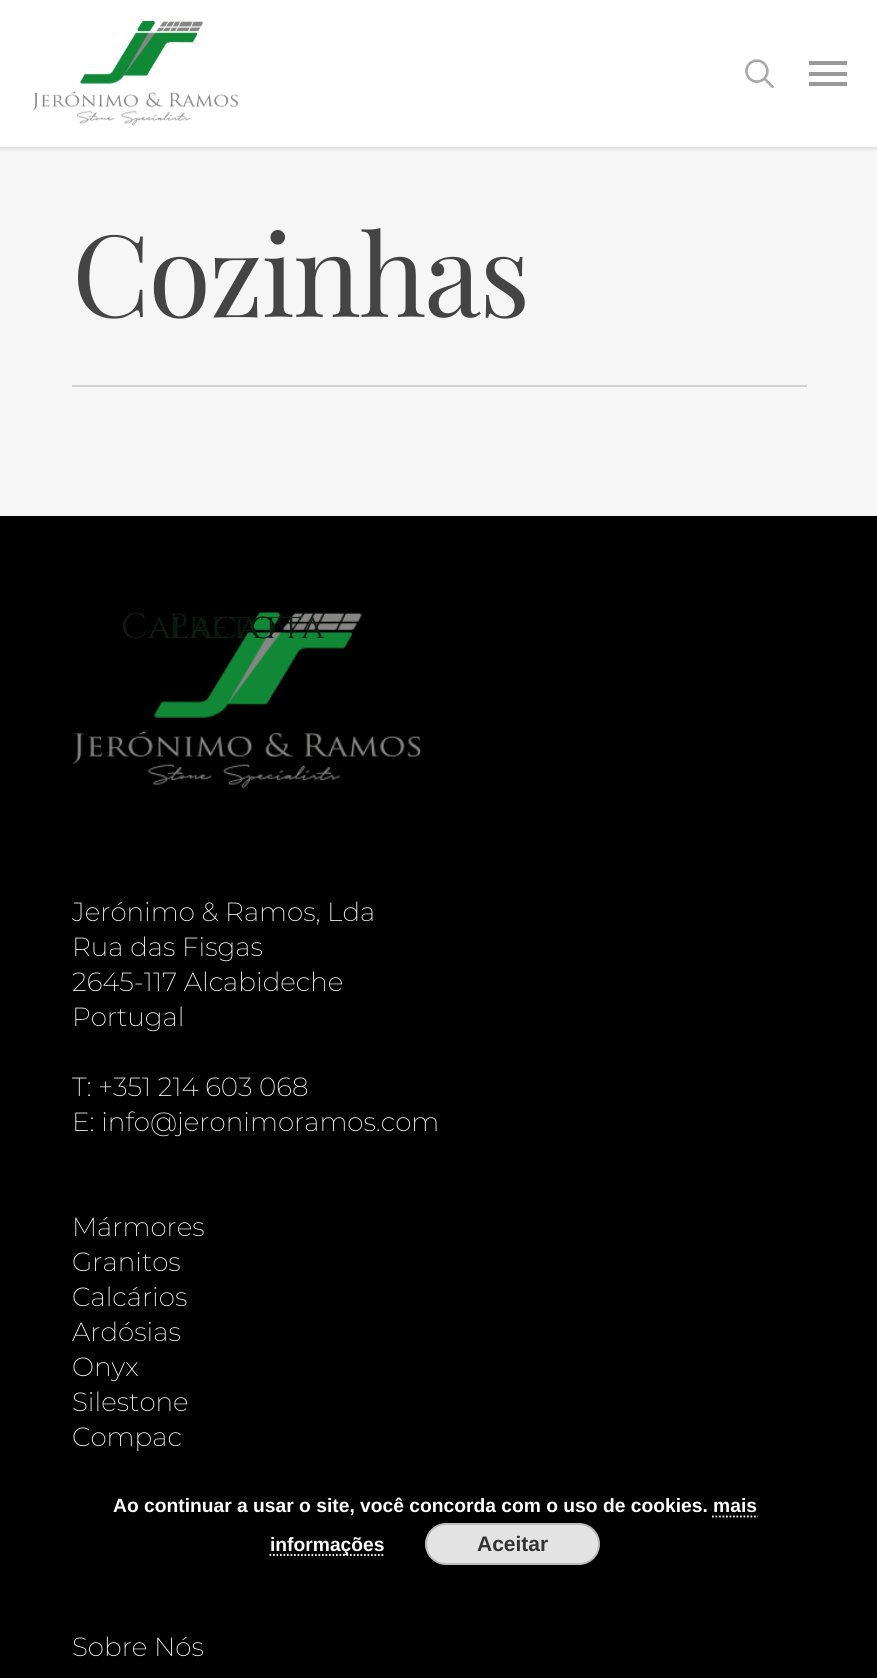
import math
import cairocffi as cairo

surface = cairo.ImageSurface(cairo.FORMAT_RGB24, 877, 1678)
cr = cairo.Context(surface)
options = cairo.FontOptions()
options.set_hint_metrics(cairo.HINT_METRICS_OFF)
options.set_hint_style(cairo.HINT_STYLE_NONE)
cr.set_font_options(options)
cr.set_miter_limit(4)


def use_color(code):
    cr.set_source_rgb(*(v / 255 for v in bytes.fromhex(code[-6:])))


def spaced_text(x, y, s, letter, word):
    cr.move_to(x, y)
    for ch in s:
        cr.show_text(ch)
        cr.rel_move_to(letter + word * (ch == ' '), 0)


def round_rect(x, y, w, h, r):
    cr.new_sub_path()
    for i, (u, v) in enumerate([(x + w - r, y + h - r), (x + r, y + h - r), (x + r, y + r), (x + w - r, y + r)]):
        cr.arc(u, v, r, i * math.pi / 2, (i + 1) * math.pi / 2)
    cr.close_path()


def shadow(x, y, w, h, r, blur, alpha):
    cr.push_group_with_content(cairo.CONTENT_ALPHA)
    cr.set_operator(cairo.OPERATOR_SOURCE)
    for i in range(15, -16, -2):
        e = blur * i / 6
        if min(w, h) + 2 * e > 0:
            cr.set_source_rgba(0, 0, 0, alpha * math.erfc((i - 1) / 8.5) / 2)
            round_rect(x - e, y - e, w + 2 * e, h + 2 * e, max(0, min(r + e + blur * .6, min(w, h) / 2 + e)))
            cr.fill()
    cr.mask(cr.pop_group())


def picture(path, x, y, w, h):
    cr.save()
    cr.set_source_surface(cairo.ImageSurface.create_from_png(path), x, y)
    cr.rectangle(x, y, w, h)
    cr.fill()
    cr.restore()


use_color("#ffffff")
cr.paint()
use_color("#f6f6f6")
cr.rectangle(0, 147, 877, 369)
cr.fill()
cr.save()
cr.rectangle(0, 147, 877, 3)
cr.clip()
use_color("#000000")
shadow(0, 0, 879, 147, 0, 2.5, 0.22)
cr.restore()
picture("img1.png", 32, 21, 207, 105)
picture("img2.png", 745, 59, 29, 30)
use_color("#999999")
cr.rectangle(809, 61, 38, 4)
cr.fill()
cr.rectangle(809, 82, 38, 4)
cr.fill()
cr.rectangle(809, 72, 38, 4)
cr.fill()
use_color("#d1d1d1")
cr.rectangle(72, 385, 735, 2)
cr.fill()
cr.select_font_face("Playfair Display")
cr.set_font_size(113.75)
use_color("#444444")
spaced_text(72, 317, "Cozinhas", -1.75, 0)
use_color("#000000")
cr.rectangle(0, 516, 877, 1162)
cr.fill()
picture("img3.png", 72, 612, 350, 177)
cr.select_font_face("Cinzel")
cr.set_font_size(35)
use_color("#061a0c")
cr.move_to(168, 638)
cr.show_text("Preto")
use_color("#0c1e12")
cr.move_to(121, 638)
cr.show_text("Calacatta")
cr.select_font_face("Montserrat ExtraLight")
cr.set_font_size(26.25)
use_color("#ffffff")
cr.move_to(72, 921)
cr.show_text("Jerónimo & Ramos, Lda")
cr.move_to(72, 956)
cr.show_text("Rua das Fisgas")
cr.move_to(72, 991)
cr.show_text("2645-117 Alcabideche")
cr.move_to(72, 1026)
cr.show_text("Portugal")
cr.move_to(72, 1096)
cr.show_text("T: +351 214 603 068")
cr.move_to(72, 1131)
cr.show_text("E: info@jeronimoramos.com")
cr.move_to(72, 1236)
cr.show_text("Mármores")
cr.move_to(72, 1271)
cr.show_text("Granitos")
cr.move_to(72, 1306)
cr.show_text("Calcários")
cr.move_to(72, 1341)
cr.show_text("Ardósias")
cr.move_to(72, 1376)
cr.show_text("Onyx")
cr.move_to(72, 1411)
cr.show_text("Silestone")
cr.move_to(72, 1446)
cr.show_text("Compac")
cr.move_to(72, 1656)
cr.show_text("Sobre Nós")
cr.select_font_face("Liberation Sans", cairo.FONT_SLANT_NORMAL, cairo.FONT_WEIGHT_BOLD)
cr.set_font_size(19.25)
cr.move_to(113, 1512)
cr.show_text("Ao continuar a usar o site, você concorda com o uso de cookies. mais")
cr.new_path()
cr.move_to(269.5, 1555)
cr.line_to(385, 1555)
cr.set_line_width(1.8)
cr.set_dash([1.75, 1.75])
cr.stroke()
cr.move_to(270, 1551)
cr.show_text("informações")
cr.new_path()
cr.move_to(712, 1516.5)
cr.line_to(758, 1516.5)
cr.stroke()
use_color("#e3e3e3")
round_rect(426, 1524, 173, 40, 20)
cr.fill_preserve()
use_color("#bbbbbb")
cr.set_line_width(2)
cr.set_dash([])
cr.stroke()
cr.set_font_size(21)
use_color("#333333")
cr.move_to(477, 1551)
cr.show_text("Aceitar")
surface.write_to_png("result.png")
